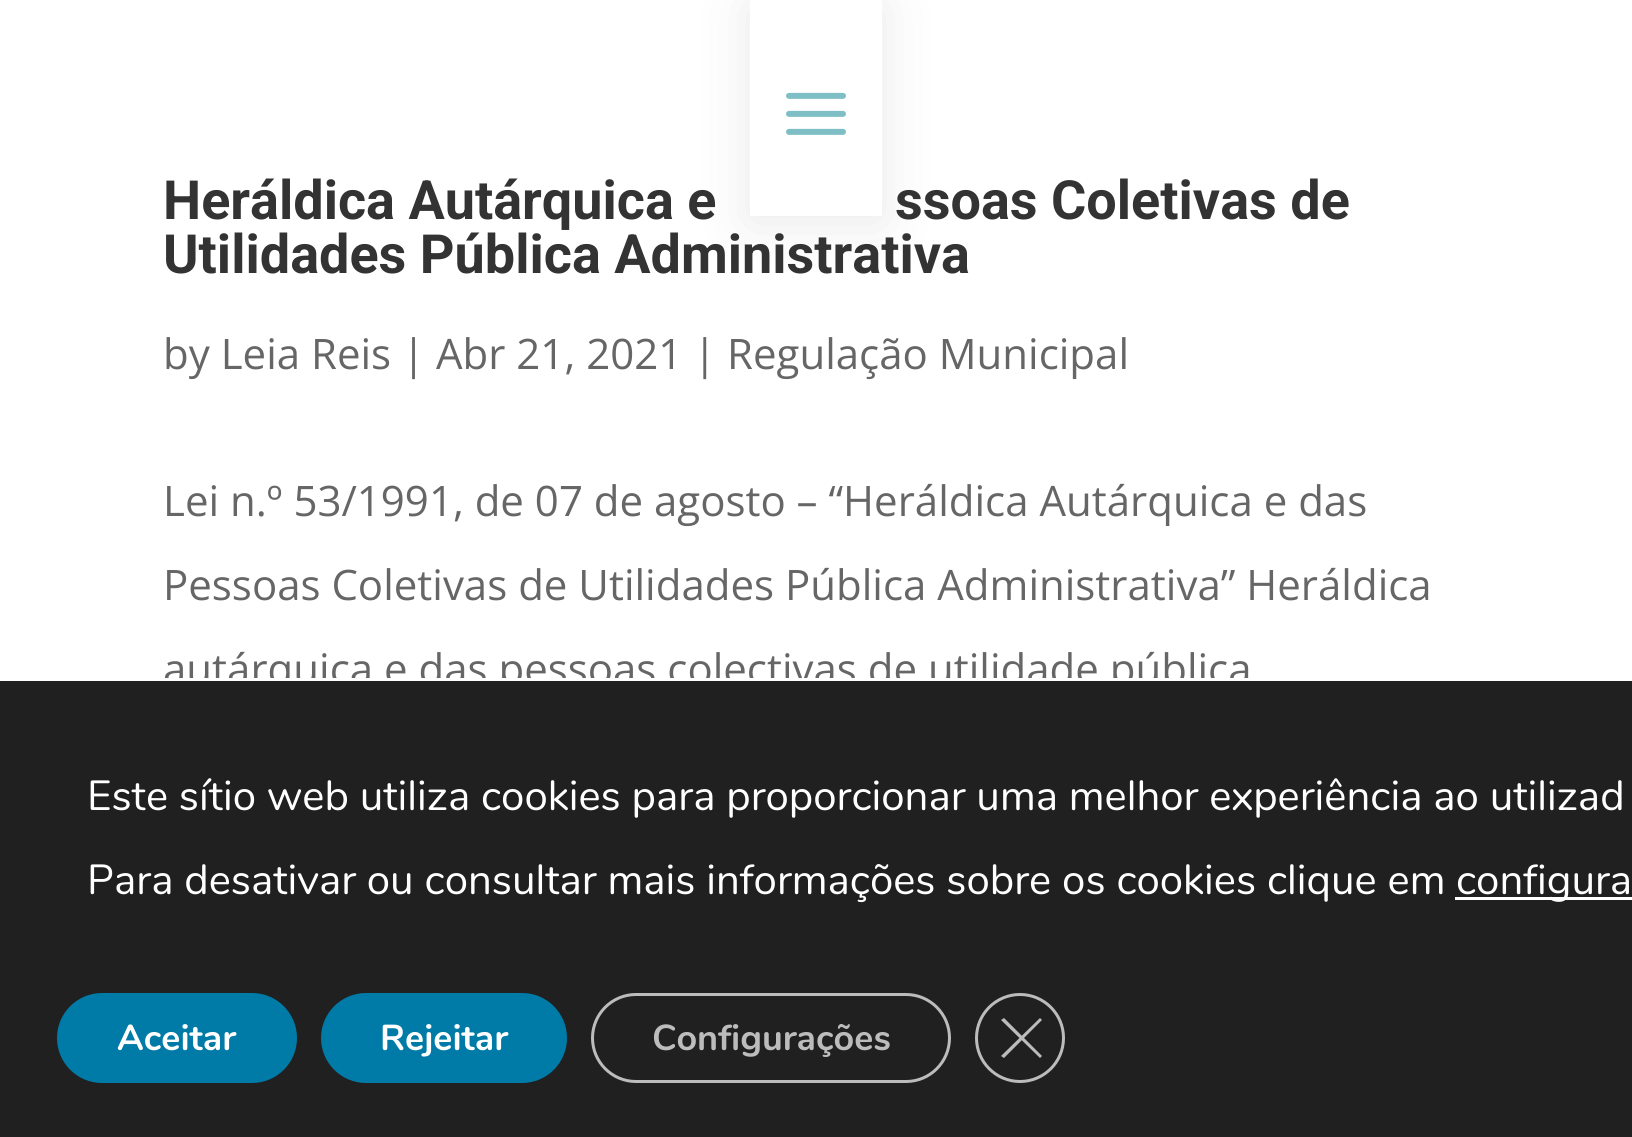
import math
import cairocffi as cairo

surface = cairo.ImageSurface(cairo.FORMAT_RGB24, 1632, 1137)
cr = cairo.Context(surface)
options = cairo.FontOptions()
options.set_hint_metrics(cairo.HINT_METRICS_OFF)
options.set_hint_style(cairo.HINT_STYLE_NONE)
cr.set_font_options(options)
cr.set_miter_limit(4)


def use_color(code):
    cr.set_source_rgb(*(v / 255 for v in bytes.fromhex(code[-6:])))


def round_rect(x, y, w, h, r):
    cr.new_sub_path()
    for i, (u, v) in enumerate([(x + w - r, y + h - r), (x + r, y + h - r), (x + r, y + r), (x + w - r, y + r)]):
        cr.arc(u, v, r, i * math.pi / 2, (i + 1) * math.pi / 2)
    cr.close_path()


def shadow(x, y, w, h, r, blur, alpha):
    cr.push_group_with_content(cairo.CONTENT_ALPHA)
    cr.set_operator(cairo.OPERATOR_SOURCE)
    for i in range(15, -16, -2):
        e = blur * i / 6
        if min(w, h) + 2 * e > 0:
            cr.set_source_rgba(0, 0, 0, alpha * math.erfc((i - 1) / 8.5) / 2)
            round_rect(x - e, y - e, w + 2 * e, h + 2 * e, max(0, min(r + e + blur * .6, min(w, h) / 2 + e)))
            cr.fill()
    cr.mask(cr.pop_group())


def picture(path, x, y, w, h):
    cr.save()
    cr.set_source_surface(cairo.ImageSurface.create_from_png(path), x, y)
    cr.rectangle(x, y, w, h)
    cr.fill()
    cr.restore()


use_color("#ffffff")
cr.paint()
use_color("#000000")
shadow(750, 6, 132, 216, 0, 27, 0.09)
use_color("#ffffff")
cr.rectangle(750, 0, 132, 216)
cr.fill()
picture("img1.png", 786, 92, 60, 43)
cr.select_font_face("Roboto", cairo.FONT_SLANT_NORMAL, cairo.FONT_WEIGHT_BOLD)
cr.set_font_size(54)
use_color("#333333")
cr.move_to(163, 219)
cr.show_text("Heráldica Autárquica e")
cr.move_to(895, 219)
cr.show_text("ssoas Coletivas de")
cr.move_to(163, 273)
cr.show_text("Utilidades Pública Administrativa")
cr.select_font_face("Open Sans")
cr.set_font_size(42)
use_color("#666666")
cr.move_to(163, 369)
cr.show_text("by Leia Reis | Abr 21, 2021 | Regulação Municipal")
cr.move_to(163, 516)
cr.show_text("Lei n.º 53/1991, de 07 de agosto – “Heráldica Autárquica e das")
cr.move_to(163, 600)
cr.show_text("Pessoas Coletivas de Utilidades Pública Administrativa” Heráldica")
cr.move_to(163, 684)
cr.show_text("autárquica e das pessoas colectivas de utilidade pública")
use_color("#202020")
cr.rectangle(0, 681, 1632, 456)
cr.fill()
use_color("#ffffff")
cr.rectangle(165, 678, 1084, 3)
cr.fill()
cr.select_font_face("Nunito")
cr.move_to(87, 810)
cr.show_text("Este sítio web utiliza cookies para proporcionar uma melhor experiência ao utilizad")
cr.move_to(87, 894)
cr.show_text("Para desativar ou consultar mais informações sobre os cookies clique em")
cr.rectangle(1455, 897, 177, 3)
cr.fill()
cr.move_to(1456, 894)
cr.show_text("configura")
use_color("#007aa6")
round_rect(57, 993, 240, 90, 45)
cr.fill()
cr.select_font_face("Nunito", cairo.FONT_SLANT_NORMAL, cairo.FONT_WEIGHT_BOLD)
cr.set_font_size(36)
use_color("#ffffff")
cr.move_to(117, 1050)
cr.show_text("Aceitar")
use_color("#007aa6")
round_rect(321, 993, 246, 90, 45)
cr.fill()
use_color("#ffffff")
cr.move_to(380, 1050)
cr.show_text("Rejeitar")
round_rect(592.5, 994.5, 357, 87, 43.5)
use_color("#bcbcbc")
cr.set_line_width(3)
cr.stroke()
cr.move_to(652, 1050)
cr.show_text("Configurações")
cr.new_path()
cr.arc(1020, 1038, 43.5, 0, 2 * math.pi)
cr.stroke()
cr.new_path()
cr.move_to(1040, 1018)
cr.line_to(1042, 1020)
cr.line_to(1004, 1058)
cr.line_to(1001, 1056)
cr.close_path()
cr.fill()
cr.new_path()
cr.move_to(1001, 1020)
cr.line_to(1004, 1018)
cr.line_to(1042, 1056)
cr.line_to(1040, 1058)
cr.close_path()
cr.fill()
surface.write_to_png("result.png")
